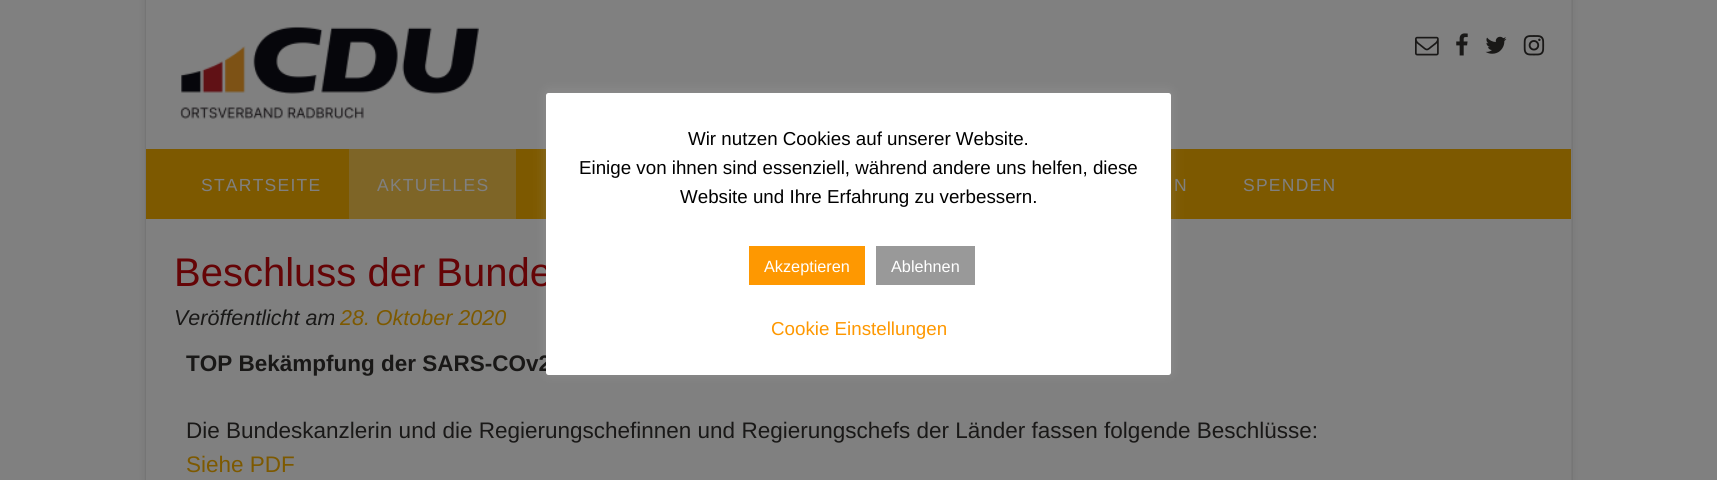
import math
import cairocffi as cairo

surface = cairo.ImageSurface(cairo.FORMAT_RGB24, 1717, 480)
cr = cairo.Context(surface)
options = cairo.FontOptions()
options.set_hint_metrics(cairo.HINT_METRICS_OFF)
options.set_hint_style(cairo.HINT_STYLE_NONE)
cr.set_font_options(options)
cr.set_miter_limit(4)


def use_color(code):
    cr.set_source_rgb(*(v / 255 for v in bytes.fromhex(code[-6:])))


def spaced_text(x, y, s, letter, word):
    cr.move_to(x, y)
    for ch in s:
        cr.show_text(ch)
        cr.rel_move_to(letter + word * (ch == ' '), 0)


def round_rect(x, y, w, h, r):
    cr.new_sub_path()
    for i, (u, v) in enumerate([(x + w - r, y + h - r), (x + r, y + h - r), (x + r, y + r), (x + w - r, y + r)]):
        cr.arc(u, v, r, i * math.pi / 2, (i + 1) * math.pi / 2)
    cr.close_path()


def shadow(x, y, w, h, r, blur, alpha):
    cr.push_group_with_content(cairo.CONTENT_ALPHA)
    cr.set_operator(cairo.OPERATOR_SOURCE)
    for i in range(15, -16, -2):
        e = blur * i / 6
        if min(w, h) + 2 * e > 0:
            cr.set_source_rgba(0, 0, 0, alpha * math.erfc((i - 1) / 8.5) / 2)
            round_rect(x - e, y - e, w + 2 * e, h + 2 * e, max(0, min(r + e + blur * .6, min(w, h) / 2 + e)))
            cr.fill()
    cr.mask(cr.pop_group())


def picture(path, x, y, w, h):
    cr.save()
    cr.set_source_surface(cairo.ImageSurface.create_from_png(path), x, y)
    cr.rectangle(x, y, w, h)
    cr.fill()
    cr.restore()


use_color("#808080")
cr.paint()
use_color("#000000")
shadow(146, -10, 1425, 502, 0, 4, 0.1)
cr.rectangle(145.5, -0.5, 1427, 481)
cr.set_source_rgba(0, 0, 0, 0.04)
cr.set_line_width(1)
cr.stroke()
use_color("#808080")
cr.rectangle(146, 0, 1425, 480)
cr.fill()
use_color("#7d5900")
cr.rectangle(146, 149, 1425, 70)
cr.fill()
use_color("#acabab")
shadow(546, 91, 625, 283, 2.5, 6, 0.3)
cr.select_font_face("Liberation Sans")
cr.set_font_size(40)
use_color("#650406")
cr.move_to(174, 286)
cr.show_text("Beschluss der Bunde")
cr.select_font_face("Liberation Sans", cairo.FONT_SLANT_NORMAL, cairo.FONT_WEIGHT_BOLD)
cr.set_font_size(22.5)
use_color("#191817")
cr.move_to(186, 371)
cr.show_text("TOP Bekämpfung der SARS-COv2")
use_color("#ffffff")
round_rect(546, 93, 625, 282, 2.5)
cr.fill()
cr.select_font_face("Liberation Sans")
cr.set_font_size(18.75)
use_color("#000000")
cr.move_to(688, 145)
cr.show_text("Wir nutzen Cookies auf unserer Website.")
cr.move_to(579, 174)
cr.show_text("Einige von ihnen sind essenziell, während andere uns helfen, diese")
cr.move_to(680, 203)
cr.show_text("Website und Ihre Erfahrung zu verbessern.")
use_color("#fe9801")
cr.rectangle(749, 246, 116, 39)
cr.fill()
cr.set_font_size(16.25)
use_color("#ffffff")
cr.move_to(764, 272)
cr.show_text("Akzeptieren")
use_color("#999999")
cr.rectangle(876, 246, 99, 39)
cr.fill()
use_color("#ffffff")
cr.move_to(891, 272)
cr.show_text("Ablehnen")
cr.set_font_size(18.75)
use_color("#fe9801")
cr.move_to(771, 335)
cr.show_text("Cookie Einstellungen")
picture("img1.png", 180, 26, 299, 93)
picture("img2.png", 1415, 36, 24, 20)
picture("img3.png", 1456, 33, 12, 23)
picture("img4.png", 1485, 36, 22, 18)
picture("img5.png", 1523, 35, 22, 21)
cr.set_font_size(17.5)
use_color("#808080")
spaced_text(201, 191, "STARTSEITE", 1.25, 0)
use_color("#7e6527")
cr.rectangle(349, 149, 167, 70)
cr.fill()
use_color("#808080")
spaced_text(377, 191, "AKTUELLES", 1.25, 0)
spaced_text(1174, 191, "N", 1.25, 0)
spaced_text(1243, 191, "SPENDEN", 1.25, 0)
cr.select_font_face("Liberation Sans", cairo.FONT_SLANT_ITALIC)
cr.set_font_size(21.5)
use_color("#191817")
cr.move_to(174, 325)
cr.show_text("Veröffentlicht am")
use_color("#7d5900")
cr.move_to(340, 325)
cr.show_text("28. Oktober 2020")
cr.select_font_face("Liberation Sans")
cr.set_font_size(22.5)
use_color("#191817")
cr.move_to(186, 438)
cr.show_text("Die Bundeskanzlerin und die Regierungschefinnen und Regierungschefs der Länder fassen folgende Beschlüsse:")
use_color("#7d5900")
cr.move_to(186, 472)
cr.show_text("Siehe PDF")
surface.write_to_png("result.png")
